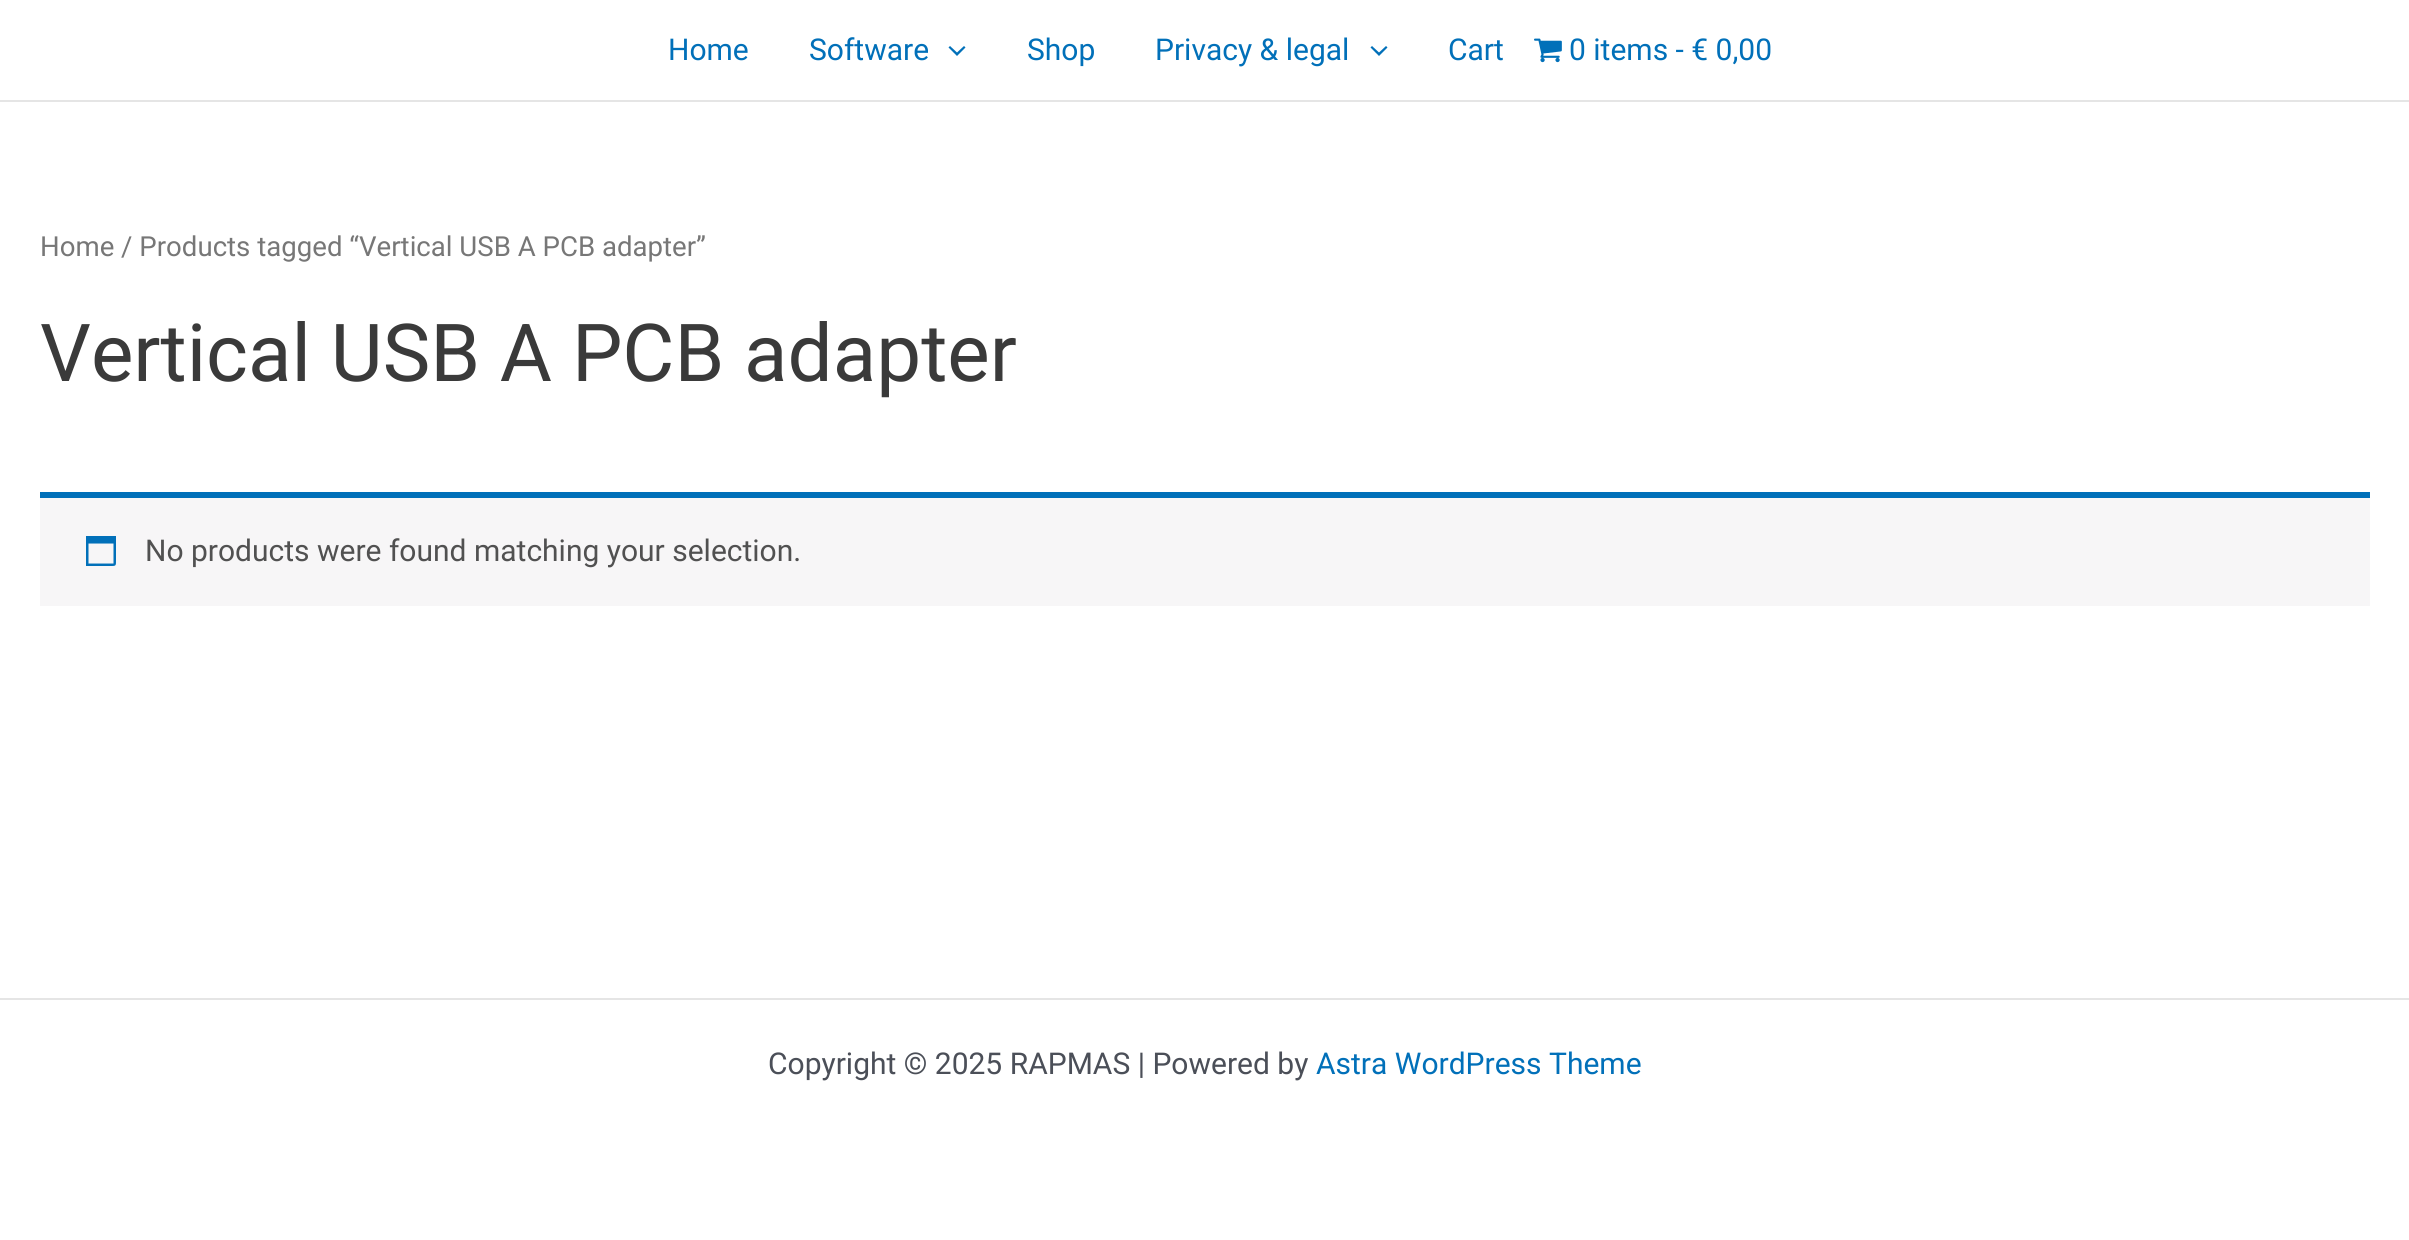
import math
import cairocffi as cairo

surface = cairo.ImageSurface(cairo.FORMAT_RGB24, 2409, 1240)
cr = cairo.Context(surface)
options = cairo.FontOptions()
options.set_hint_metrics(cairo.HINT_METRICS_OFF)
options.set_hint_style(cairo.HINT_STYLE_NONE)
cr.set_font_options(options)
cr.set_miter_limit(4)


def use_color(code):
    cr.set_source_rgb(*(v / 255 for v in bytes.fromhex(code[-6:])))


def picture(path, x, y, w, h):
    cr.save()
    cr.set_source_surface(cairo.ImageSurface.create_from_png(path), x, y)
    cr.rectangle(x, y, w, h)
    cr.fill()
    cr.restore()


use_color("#ffffff")
cr.paint()
use_color("#e5e5e5")
cr.rectangle(0, 100, 2409, 2)
cr.fill()
cr.select_font_face("Roboto")
cr.set_font_size(30)
use_color("#0170b9")
cr.move_to(668, 60)
cr.show_text("Home")
cr.move_to(809, 60)
cr.show_text("Software")
cr.new_path()
cr.move_to(948.5, 47.5)
cr.line_to(957, 56)
cr.line_to(965.5, 47.5)
cr.line_to(964, 46)
cr.line_to(957, 52.5)
cr.line_to(950, 46)
cr.close_path()
cr.fill()
cr.move_to(1027, 60)
cr.show_text("Shop")
cr.move_to(1155, 60)
cr.show_text("Privacy & legal")
cr.new_path()
cr.move_to(1370.5, 47.5)
cr.line_to(1379, 56)
cr.line_to(1387.5, 47.5)
cr.line_to(1386, 46)
cr.line_to(1379, 52.5)
cr.line_to(1372, 46)
cr.close_path()
cr.fill()
cr.move_to(1448, 60)
cr.show_text("Cart")
picture("img1.png", 1534, 38, 28, 25)
cr.move_to(1569, 60)
cr.show_text("0 items - € 0,00")
cr.set_font_size(27.6)
use_color("#777777")
cr.move_to(40, 256)
cr.show_text("Home / Products tagged “Vertical USB A PCB adapter”")
cr.set_font_size(80)
use_color("#3a3a3a")
cr.move_to(40, 381)
cr.show_text("Vertical USB A PCB adapter")
use_color("#f7f6f7")
cr.rectangle(40, 498, 2330, 108)
cr.fill()
use_color("#0170b9")
cr.rectangle(40, 492, 2330, 6)
cr.fill()
cr.new_path()
cr.move_to(113.5, 543.5)
cr.line_to(88.5, 543.5)
cr.line_to(88.5, 563.5)
cr.line_to(113.5, 563.5)
cr.close_path()
cr.move_to(116, 536)
cr.line_to(116, 559)
cr.curve_to(116, 566.5, 116.5, 566, 109, 566)
cr.line_to(86, 566)
cr.line_to(86, 536)
cr.close_path()
cr.fill()
cr.set_font_size(30)
use_color("#515151")
cr.move_to(145, 561)
cr.show_text("No products were found matching your selection.")
use_color("#e5e5e5")
cr.rectangle(0, 998, 2409, 2)
cr.fill()
use_color("#4b4f58")
cr.move_to(768, 1074)
cr.show_text("Copyright © 2025 RAPMAS | Powered by")
use_color("#0170b9")
cr.move_to(1316, 1074)
cr.show_text("Astra WordPress Theme")
surface.write_to_png("result.png")
